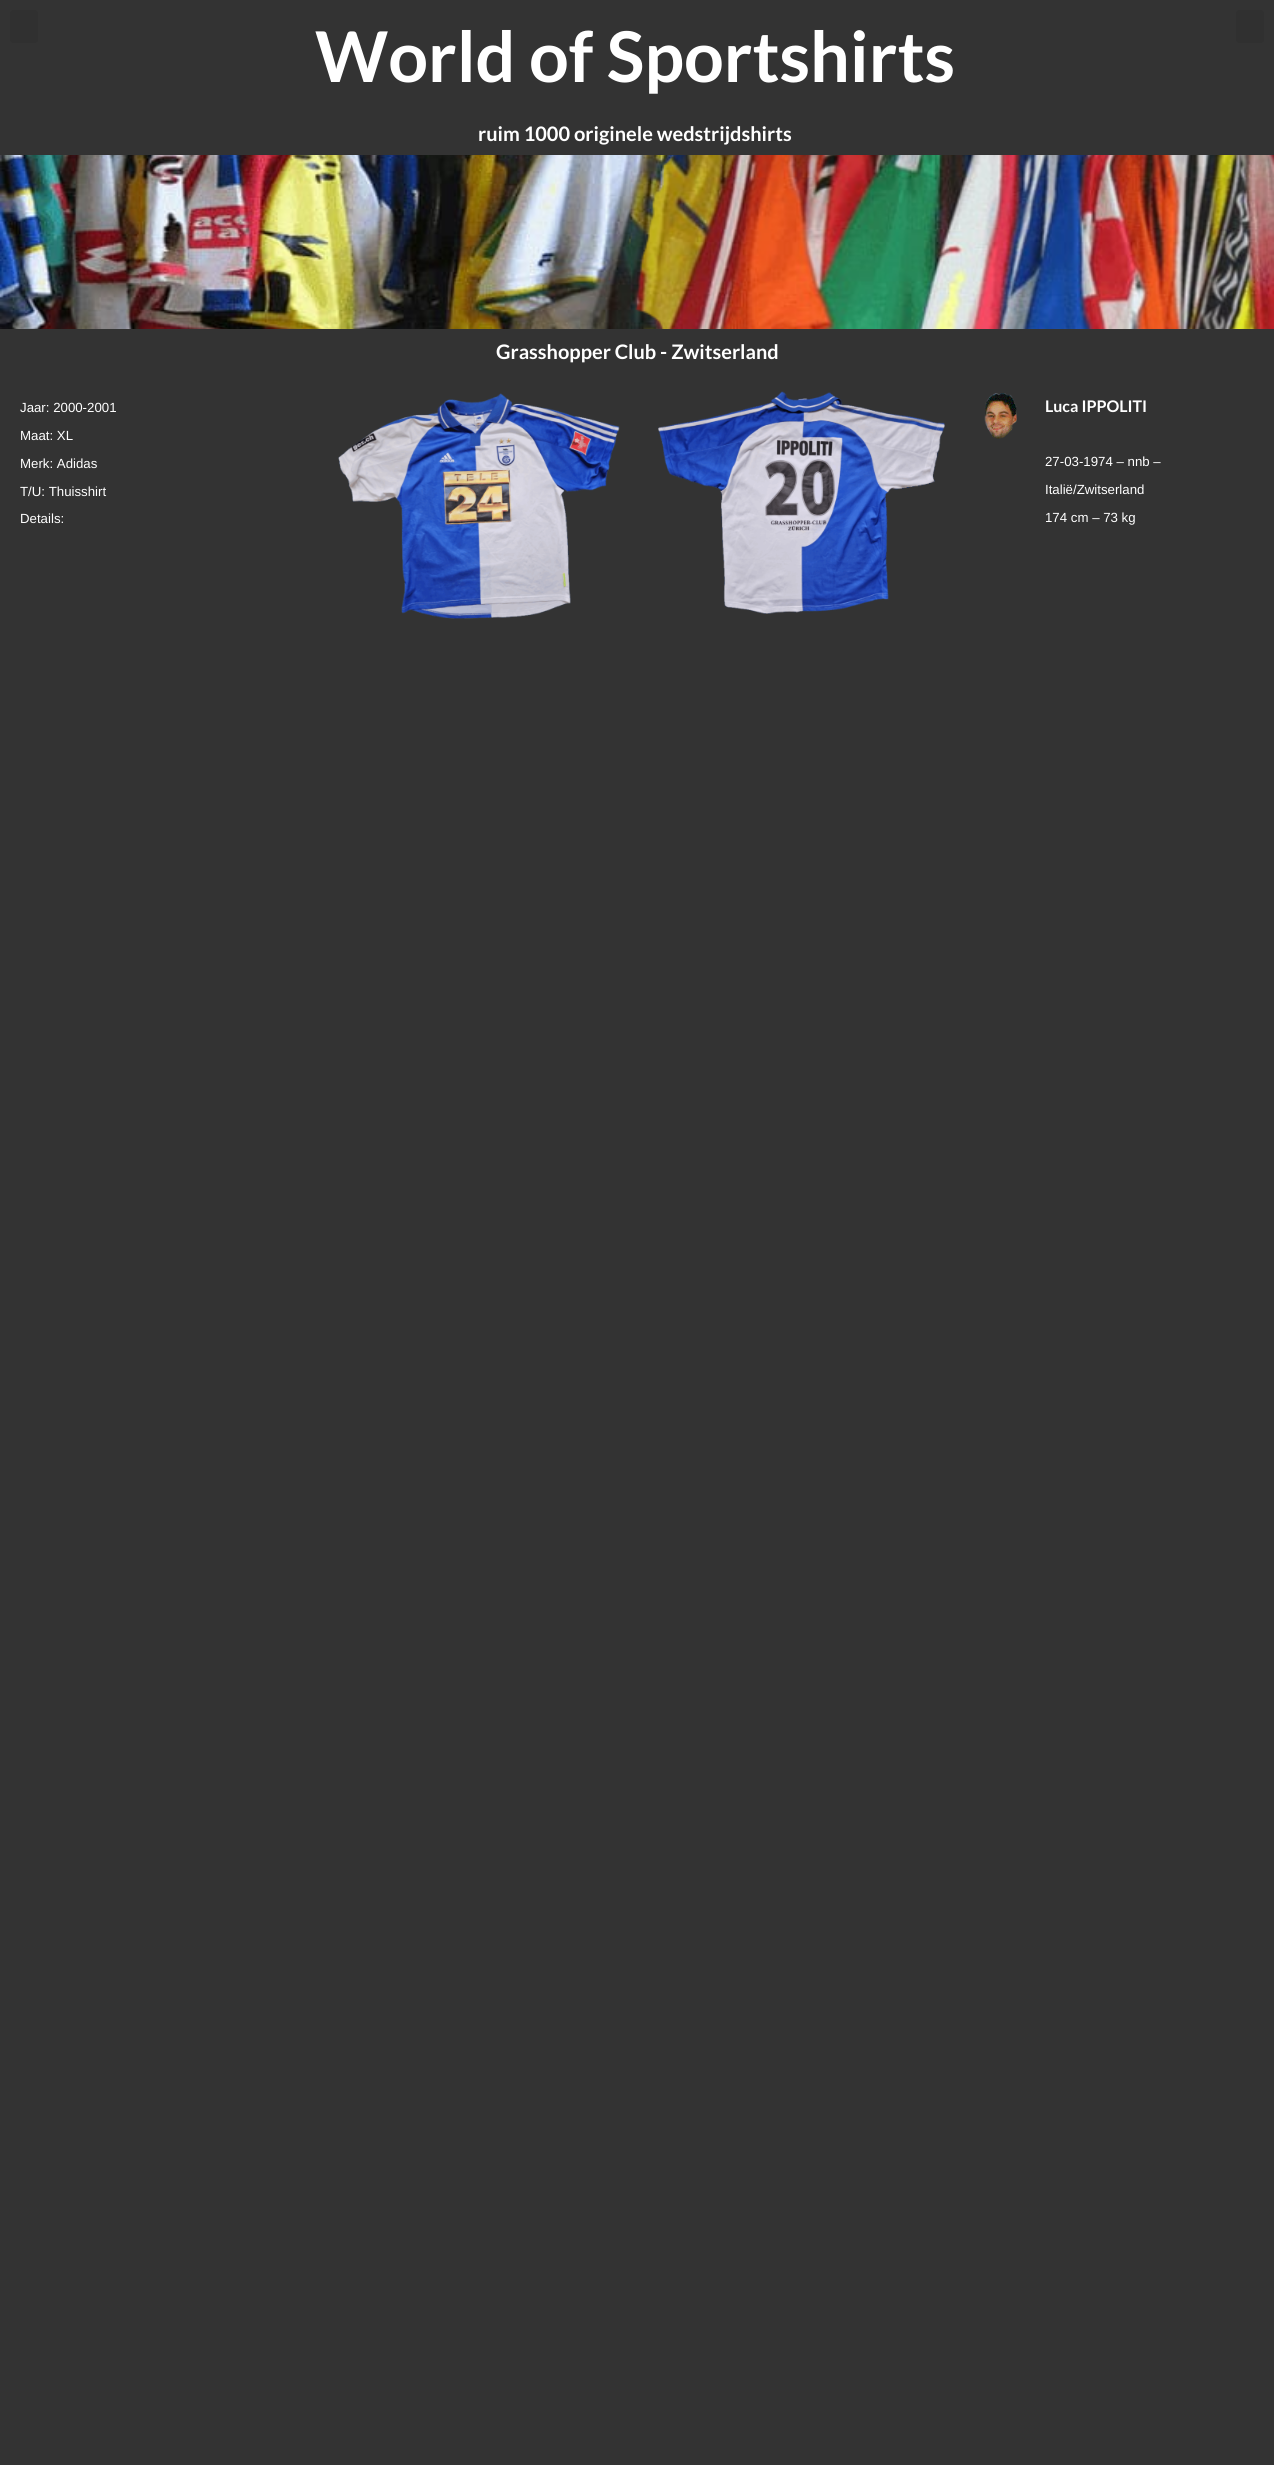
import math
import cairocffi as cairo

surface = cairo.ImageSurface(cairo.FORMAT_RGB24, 1274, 2465)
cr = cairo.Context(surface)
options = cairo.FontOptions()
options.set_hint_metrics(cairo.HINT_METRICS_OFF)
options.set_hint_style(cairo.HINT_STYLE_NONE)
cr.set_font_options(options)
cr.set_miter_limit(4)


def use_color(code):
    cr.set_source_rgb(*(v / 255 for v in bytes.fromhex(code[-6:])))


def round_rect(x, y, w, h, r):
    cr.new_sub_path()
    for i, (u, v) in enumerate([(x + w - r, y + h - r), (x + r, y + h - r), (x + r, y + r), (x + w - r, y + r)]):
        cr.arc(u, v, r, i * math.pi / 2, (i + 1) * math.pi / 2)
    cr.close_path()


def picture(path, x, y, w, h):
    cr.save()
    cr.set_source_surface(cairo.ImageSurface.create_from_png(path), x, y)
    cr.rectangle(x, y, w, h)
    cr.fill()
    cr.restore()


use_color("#333333")
cr.paint()
use_color("#303030")
round_rect(10, 10, 28, 33, 3)
cr.fill()
round_rect(1236, 10, 28, 33, 3)
cr.fill()
cr.select_font_face("Lato", cairo.FONT_SLANT_NORMAL, cairo.FONT_WEIGHT_BOLD)
cr.set_font_size(70)
use_color("#ffffff")
cr.move_to(315, 82)
cr.show_text("World of Sportshirts")
cr.set_font_size(20)
cr.move_to(478, 141)
cr.show_text("ruim 1000 originele wedstrijdshirts")
picture("img1.png", 0, 155, 1274, 174)
cr.move_to(496, 359)
cr.show_text("Grasshopper Club - Zwitserland")
cr.select_font_face("Liberation Sans")
cr.set_font_size(13.25)
cr.move_to(20, 412)
cr.show_text("Jaar: 2000-2001")
cr.move_to(20, 440)
cr.show_text("Maat: XL")
cr.move_to(20, 468)
cr.show_text("Merk: Adidas")
cr.move_to(20, 496)
cr.show_text("T/U: Thuisshirt")
cr.move_to(20, 523)
cr.show_text("Details:")
picture("img2.png", 338, 393, 282, 226)
picture("img3.png", 658, 391, 287, 223)
picture("img4.png", 984, 393, 33, 46)
cr.select_font_face("Lato", cairo.FONT_SLANT_NORMAL, cairo.FONT_WEIGHT_BOLD)
cr.set_font_size(16)
cr.move_to(1045, 412)
cr.show_text("Luca IPPOLITI")
cr.select_font_face("Liberation Sans")
cr.set_font_size(13.25)
cr.move_to(1045, 466)
cr.show_text("27-03-1974 – nnb –")
cr.move_to(1045, 494)
cr.show_text("Italië/Zwitserland")
cr.move_to(1045, 522)
cr.show_text("174 cm – 73 kg")
surface.write_to_png("result.png")
